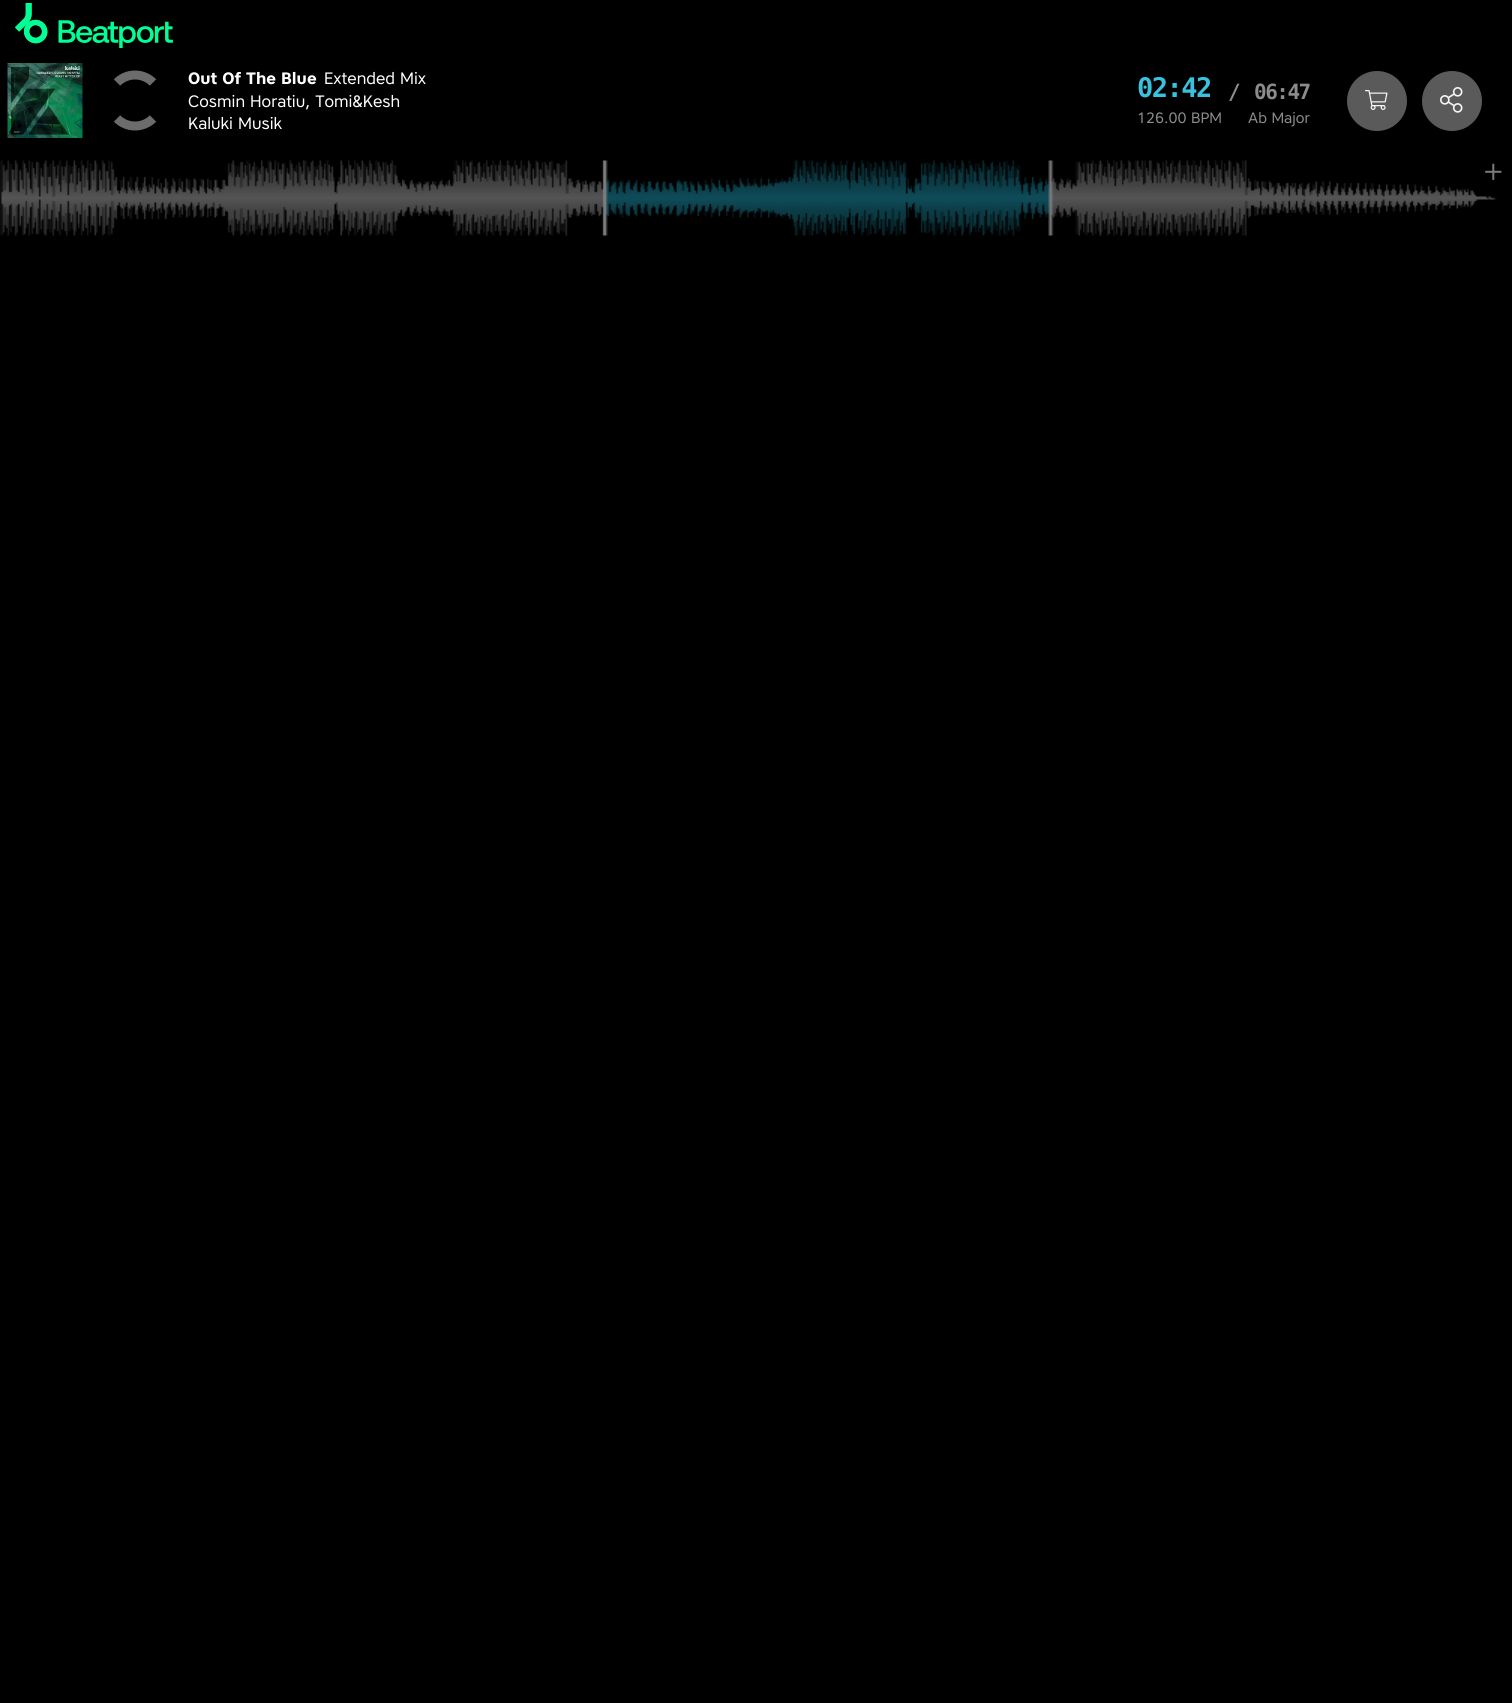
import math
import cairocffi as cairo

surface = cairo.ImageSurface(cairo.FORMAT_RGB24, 1512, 1703)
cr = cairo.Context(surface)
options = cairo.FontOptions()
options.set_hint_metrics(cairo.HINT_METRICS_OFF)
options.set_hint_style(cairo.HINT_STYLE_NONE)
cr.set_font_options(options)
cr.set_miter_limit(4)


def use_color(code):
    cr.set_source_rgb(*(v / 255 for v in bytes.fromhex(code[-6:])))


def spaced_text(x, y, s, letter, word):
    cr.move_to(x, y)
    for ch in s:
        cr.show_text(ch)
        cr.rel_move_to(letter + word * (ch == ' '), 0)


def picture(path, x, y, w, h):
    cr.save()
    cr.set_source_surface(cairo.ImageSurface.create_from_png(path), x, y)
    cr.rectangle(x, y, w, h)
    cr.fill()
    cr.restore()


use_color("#000000")
cr.paint()
picture("img1.png", 15, 3, 158, 45)
picture("img2.png", 7, 63, 76, 75)
cr.new_path()
cr.move_to(117, 82.5)
cr.curve_to(127, 72.5, 143, 72.5, 153, 82.5)
cr.move_to(153, 118.5)
cr.curve_to(143, 128.5, 127, 128.5, 117, 118.5)
use_color("#6c6c6c")
cr.set_line_width(9)
cr.stroke()
cr.select_font_face("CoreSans")
cr.set_font_size(16.5)
use_color("#ffffff")
cr.move_to(188, 84)
cr.show_text("Out Of The Blue")
cr.select_font_face("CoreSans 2")
cr.move_to(324, 84)
cr.show_text("Extended Mix")
cr.move_to(188, 107)
cr.show_text("Cosmin Horatiu, Tomi&Kesh")
cr.move_to(188, 129)
cr.show_text("Kaluki Musik")
cr.select_font_face("DejaVu Sans Mono", cairo.FONT_SLANT_NORMAL, cairo.FONT_WEIGHT_BOLD)
cr.set_font_size(27)
use_color("#39c1de")
spaced_text(1137, 97, "02:42", -1.5, 0)
cr.set_font_size(21)
use_color("#8c8c8c")
spaced_text(1228, 99, "/", -1.5, 0)
spaced_text(1254, 99, "06:47", -1.5, 0)
cr.select_font_face("CoreSans 2")
cr.set_font_size(15)
cr.move_to(1137, 123)
cr.show_text("126.00 BPM")
cr.move_to(1248, 123)
cr.show_text("Ab Major")
use_color("#5a5a5a")
cr.new_path()
cr.arc(1377, 101, 30, 0, 2 * math.pi)
cr.fill()
picture("img3.png", 1365, 90, 23, 20)
cr.arc(1452, 101, 30, 0, 2 * math.pi)
cr.fill()
picture("img4.png", 1440, 87, 23, 26)
picture("img5.png", 0, 160, 1497, 76)
picture("img6.png", 1485, 163, 17, 17)
surface.write_to_png("result.png")
